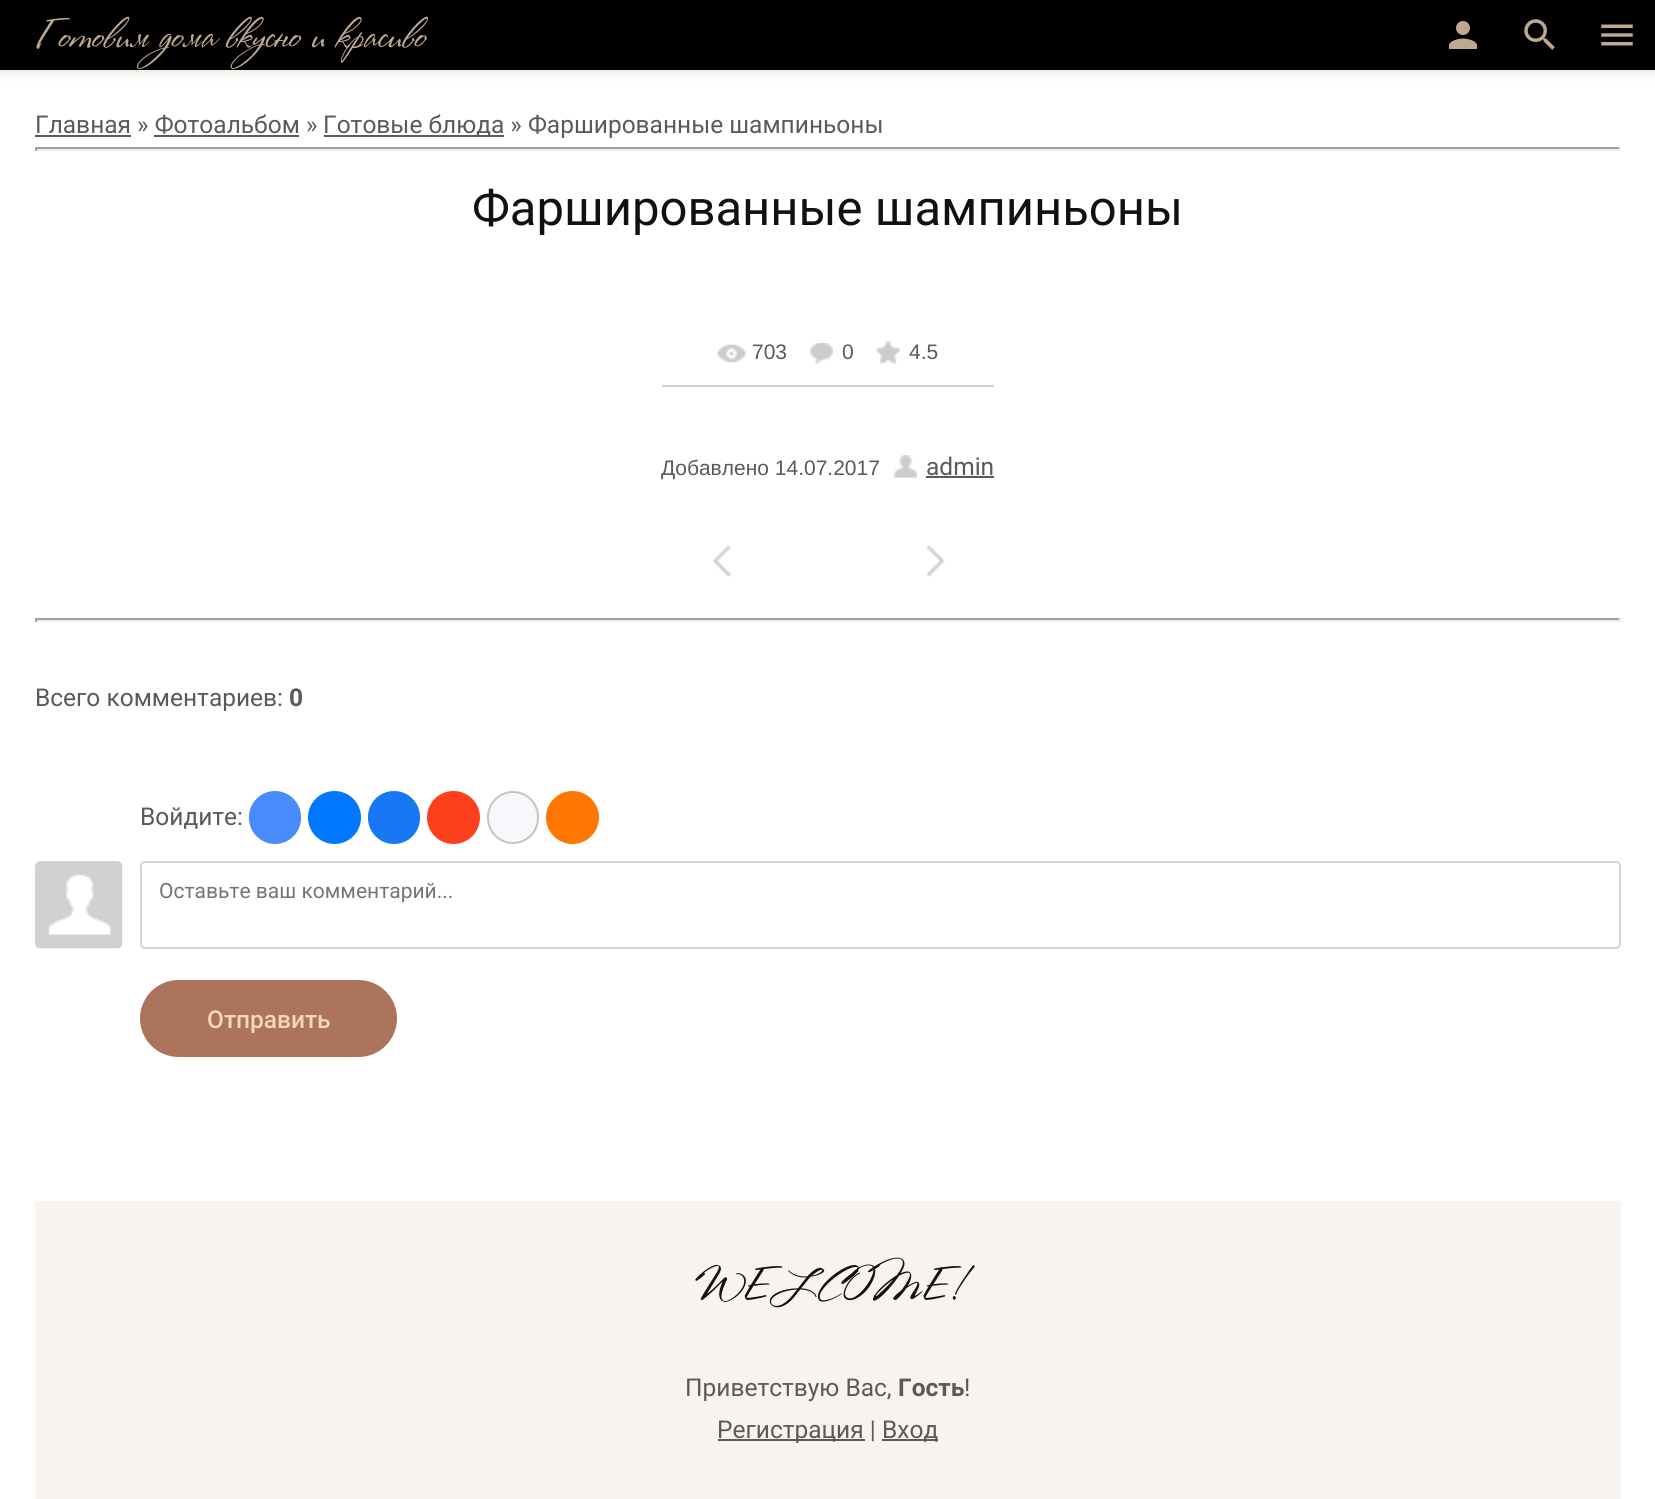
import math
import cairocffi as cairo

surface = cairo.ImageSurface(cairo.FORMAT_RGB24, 1655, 1499)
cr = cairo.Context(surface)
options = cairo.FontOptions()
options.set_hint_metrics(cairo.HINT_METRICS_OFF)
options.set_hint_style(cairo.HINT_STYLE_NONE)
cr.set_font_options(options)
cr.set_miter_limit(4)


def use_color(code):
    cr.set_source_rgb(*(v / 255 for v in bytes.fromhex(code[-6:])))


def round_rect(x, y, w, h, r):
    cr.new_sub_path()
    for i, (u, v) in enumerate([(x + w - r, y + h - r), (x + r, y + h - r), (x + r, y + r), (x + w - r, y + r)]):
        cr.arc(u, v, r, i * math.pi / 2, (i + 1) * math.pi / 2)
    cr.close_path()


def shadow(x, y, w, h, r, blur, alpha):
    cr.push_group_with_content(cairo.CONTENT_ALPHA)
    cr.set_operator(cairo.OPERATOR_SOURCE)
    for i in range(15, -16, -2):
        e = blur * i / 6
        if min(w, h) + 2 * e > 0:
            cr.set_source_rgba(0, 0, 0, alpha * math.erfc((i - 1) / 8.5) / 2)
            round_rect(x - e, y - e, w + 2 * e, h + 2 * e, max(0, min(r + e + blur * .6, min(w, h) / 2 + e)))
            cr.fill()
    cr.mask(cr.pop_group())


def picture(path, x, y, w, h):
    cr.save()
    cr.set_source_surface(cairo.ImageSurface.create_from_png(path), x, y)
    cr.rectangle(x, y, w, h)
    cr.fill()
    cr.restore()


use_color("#ffffff")
cr.paint()
use_color("#302500")
shadow(0, 4, 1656, 70, 0, 4.5, 0.1)
use_color("#000000")
cr.rectangle(0, 0, 1655, 70)
cr.fill()
cr.select_font_face("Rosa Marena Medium")
cr.set_font_size(38.5)
use_color("#bfa891")
cr.move_to(35, 47)
cr.show_text("Готовим дома вкусно и красиво")
picture("img1.png", 1448, 21, 30, 28)
picture("img2.png", 1524, 19, 31, 31)
picture("img3.png", 1601, 24, 32, 22)
cr.select_font_face("Roboto")
cr.set_font_size(24.5)
use_color("#5e5859")
cr.move_to(35, 133)
cr.show_text("Главная » Фотоальбом »")
cr.rectangle(35, 135, 96, 2)
cr.fill()
cr.rectangle(324, 135, 180, 2)
cr.fill()
cr.move_to(323, 133)
cr.show_text("Готовые блюда » Фаршированные шампиньоны")
cr.rectangle(154, 135, 145, 2)
cr.fill()
use_color("#9f9f9f")
cr.rectangle(35, 147, 1586, 2)
cr.fill()
use_color("#eeeeee")
cr.rectangle(1619, 147, 2, 4)
cr.fill()
cr.rectangle(35, 149, 1586, 2)
cr.fill()
use_color("#9f9f9f")
cr.rectangle(35, 147, 2, 4)
cr.fill()
cr.set_font_size(49)
use_color("#121111")
cr.move_to(472, 225)
cr.show_text("Фаршированные шампиньоны")
picture("img4.png", 717, 344, 29, 19)
cr.select_font_face("Liberation Sans")
cr.set_font_size(21)
use_color("#5e5859")
cr.move_to(752, 359)
cr.show_text("703")
picture("img5.png", 810, 343, 23, 21)
cr.move_to(842, 359)
cr.show_text("0")
picture("img6.png", 876, 341, 24, 23)
cr.move_to(909, 359)
cr.show_text("4.5")
use_color("#d9cfc3")
cr.rectangle(662, 385, 332, 2)
cr.fill()
use_color("#5e5859")
cr.move_to(661, 475)
cr.show_text("Добавлено 14.07.2017")
picture("img7.png", 894, 455, 23, 23)
cr.select_font_face("Roboto")
cr.set_font_size(24.5)
cr.move_to(926, 475)
cr.show_text("admin")
cr.rectangle(926, 476, 68, 2)
cr.fill()
picture("img8.png", 712, 545, 20, 32)
picture("img9.png", 926, 545, 19, 32)
use_color("#9f9f9f")
cr.rectangle(35, 618, 1586, 2)
cr.fill()
use_color("#eeeeee")
cr.rectangle(1619, 618, 2, 4)
cr.fill()
cr.rectangle(35, 620, 1586, 2)
cr.fill()
use_color("#9f9f9f")
cr.rectangle(35, 618, 2, 4)
cr.fill()
use_color("#5e5859")
cr.move_to(35, 706)
cr.show_text("Всего комментариев:")
cr.select_font_face("Roboto", cairo.FONT_SLANT_NORMAL, cairo.FONT_WEIGHT_BOLD)
cr.move_to(289, 706)
cr.show_text("0")
cr.select_font_face("Roboto")
cr.move_to(140, 825)
cr.show_text("Войдите:")
use_color("#498bfa")
round_rect(249, 791, 52, 53, 26)
cr.fill()
use_color("#0077ff")
cr.arc(334.5, 817.5, 26.5, 0, 2 * math.pi)
cr.fill()
use_color("#1877f2")
round_rect(368, 791, 52, 53, 26)
cr.fill()
use_color("#fc3f1d")
cr.arc(453.5, 817.5, 26.5, 0, 2 * math.pi)
cr.fill()
use_color("#f8f8fc")
round_rect(488, 792, 50, 51, 25)
cr.fill_preserve()
use_color("#c4c4c4")
cr.stroke()
use_color("#ff7700")
cr.arc(572.5, 817.5, 26.5, 0, 2 * math.pi)
cr.fill()
picture("img10.png", 35, 861, 88, 88)
round_rect(141, 862, 1479, 86, 4)
use_color("#d6d6d6")
cr.stroke()
cr.set_font_size(21)
use_color("#757575")
cr.move_to(159, 898)
cr.show_text("Оставьте ваш комментарий...")
use_color("#ab745b")
round_rect(140, 980, 257, 77, 38.5)
cr.fill()
cr.select_font_face("Roboto Medium")
cr.set_font_size(24.5)
use_color("#f5d9b5")
cr.move_to(207, 1028)
cr.show_text("Отправить")
use_color("#f7f4f0")
cr.rectangle(35, 1201, 1586, 298)
cr.fill()
cr.select_font_face("Rosa Marena Medium")
cr.set_font_size(43.75)
use_color("#121111")
cr.move_to(694, 1299)
cr.show_text("WELCOME!")
cr.select_font_face("Roboto")
cr.set_font_size(24.5)
use_color("#5e5859")
cr.move_to(685, 1396)
cr.show_text("Приветствую Вас,")
cr.select_font_face("Roboto", cairo.FONT_SLANT_NORMAL, cairo.FONT_WEIGHT_BOLD)
cr.move_to(898, 1396)
cr.show_text("Гость")
cr.select_font_face("Roboto")
cr.move_to(964, 1396)
cr.show_text("!")
cr.rectangle(718, 1439, 147, 2)
cr.fill()
cr.move_to(717, 1438)
cr.show_text("Регистрация |")
cr.rectangle(882, 1439, 56, 2)
cr.fill()
cr.move_to(882, 1438)
cr.show_text("Вход")
surface.write_to_png("result.png")
